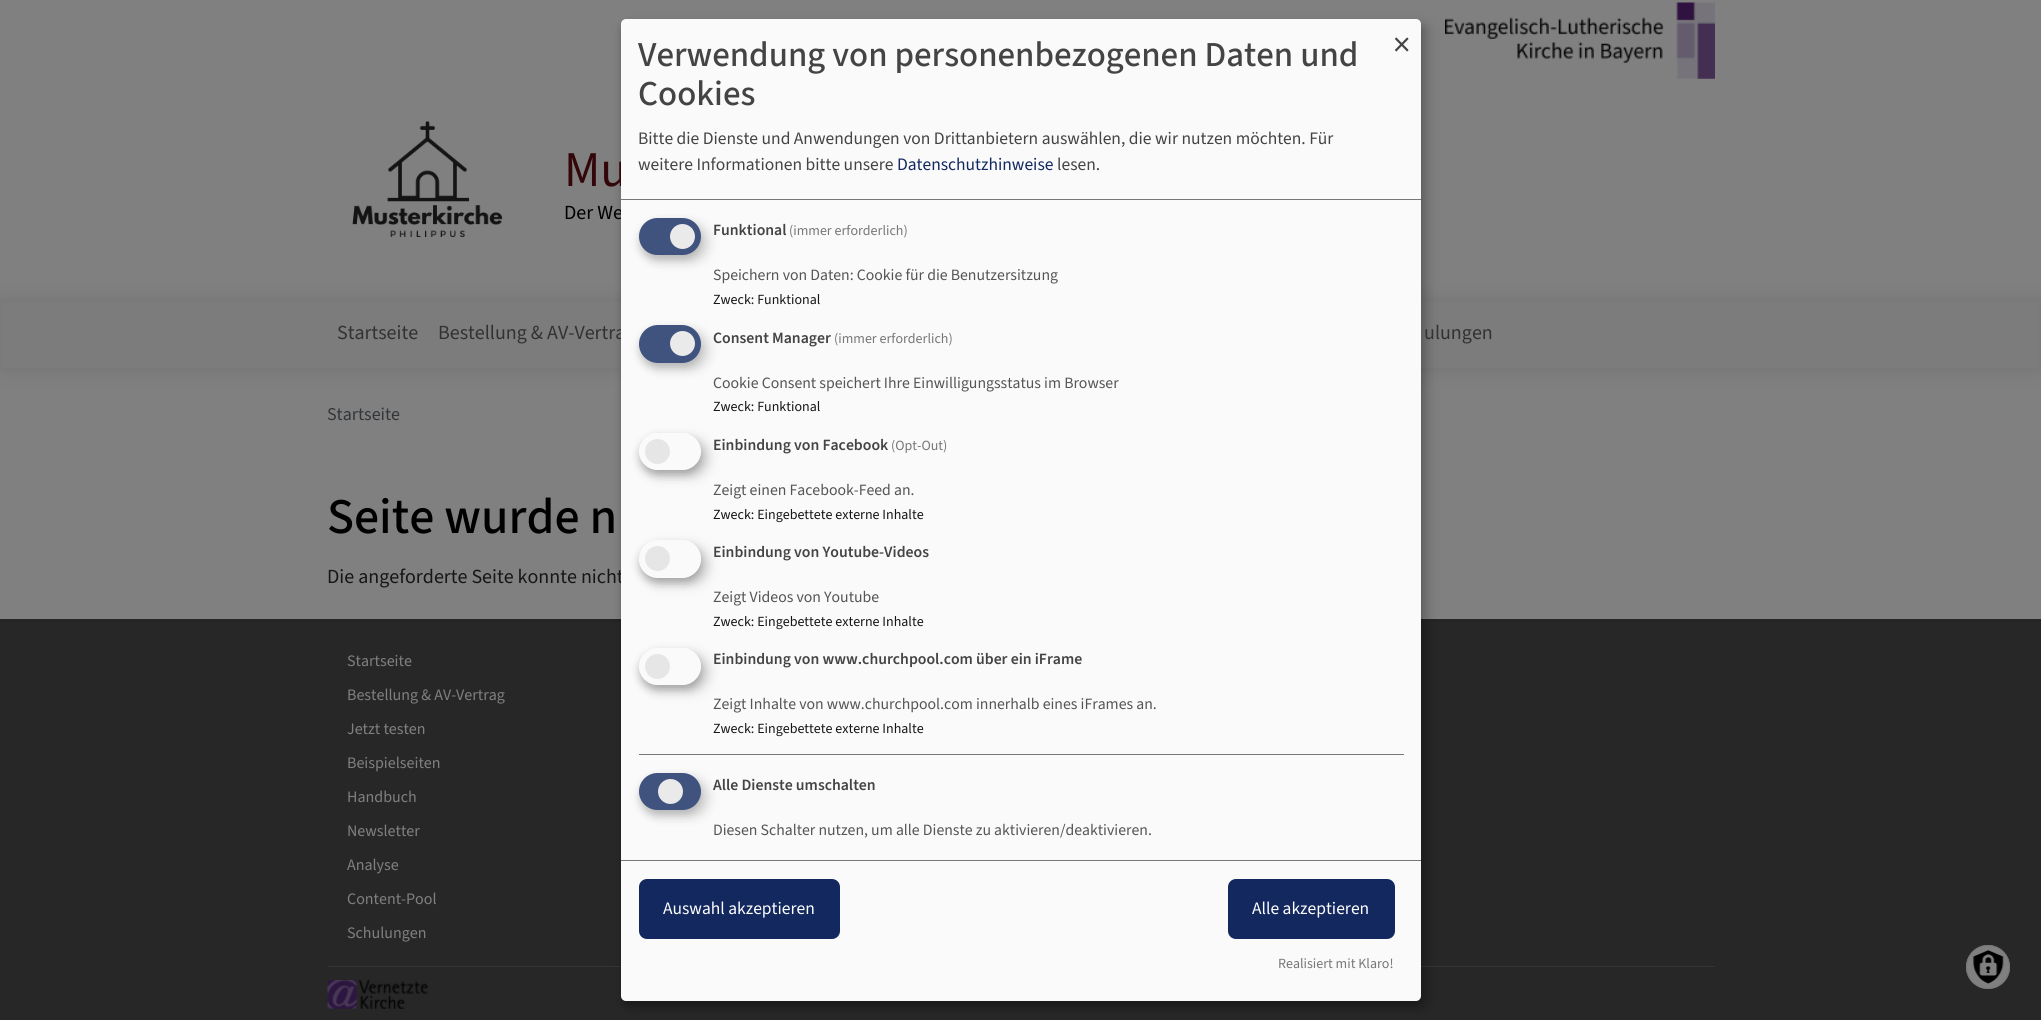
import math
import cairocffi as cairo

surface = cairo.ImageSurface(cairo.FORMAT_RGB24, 2041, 1020)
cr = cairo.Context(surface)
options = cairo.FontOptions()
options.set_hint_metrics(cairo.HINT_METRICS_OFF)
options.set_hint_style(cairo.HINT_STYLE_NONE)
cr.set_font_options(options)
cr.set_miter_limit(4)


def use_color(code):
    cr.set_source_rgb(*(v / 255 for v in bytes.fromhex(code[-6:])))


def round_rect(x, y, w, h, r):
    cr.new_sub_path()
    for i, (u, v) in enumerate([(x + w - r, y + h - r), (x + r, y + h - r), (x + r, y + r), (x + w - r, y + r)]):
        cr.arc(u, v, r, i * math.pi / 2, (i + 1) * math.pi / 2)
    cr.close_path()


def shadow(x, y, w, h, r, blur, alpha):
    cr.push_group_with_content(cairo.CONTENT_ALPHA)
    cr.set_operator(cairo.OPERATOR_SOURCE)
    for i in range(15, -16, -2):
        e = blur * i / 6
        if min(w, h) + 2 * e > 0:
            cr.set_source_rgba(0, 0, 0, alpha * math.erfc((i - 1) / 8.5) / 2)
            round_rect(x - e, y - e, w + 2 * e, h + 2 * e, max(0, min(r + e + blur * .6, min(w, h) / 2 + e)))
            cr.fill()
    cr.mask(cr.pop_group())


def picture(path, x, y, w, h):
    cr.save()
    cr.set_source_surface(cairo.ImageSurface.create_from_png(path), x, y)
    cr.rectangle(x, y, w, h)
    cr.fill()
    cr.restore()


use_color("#808080")
cr.paint()
picture("img1.png", 1445, 2, 270, 77)
use_color("#000000")
shadow(0, 300, 2041, 70, 0, 9.5, 0.09)
use_color("#7c7c7c")
cr.rectangle(2, 302, 2037, 66)
cr.fill()
use_color("#272727")
cr.rectangle(0, 622, 2041, 398)
cr.fill()
use_color("#232526")
cr.rectangle(0, 619, 2041, 3)
cr.fill()
use_color("#323639")
cr.rectangle(328, 966, 1387, 1)
cr.fill()
use_color("#000000")
shadow(628, 25, 800, 983, 5, 6, 0.19)
shadow(621, 24, 800, 982, 5, 4, 0.2)
cr.select_font_face("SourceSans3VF")
cr.set_font_size(50)
use_color("#330609")
cr.move_to(564, 186)
cr.show_text("Mu")
cr.set_font_size(20)
use_color("#000000")
cr.move_to(564, 219)
cr.show_text("Der We")
use_color("#323232")
cr.move_to(438, 339)
cr.show_text("Bestellung & AV-Vertra")
use_color("#151616")
cr.move_to(327, 583)
cr.show_text("Die angeforderte Seite konnte nicht")
use_color("#fafafa")
round_rect(621, 19, 800, 982, 5)
cr.fill()
use_color("#777777")
cr.rectangle(621, 199, 800, 1)
cr.fill()
cr.select_font_face("SourceSans3VF Medium")
cr.set_font_size(35)
use_color("#444444")
cr.move_to(638, 66)
cr.show_text("Verwendung von personenbezogenen Daten und")
cr.move_to(638, 105)
cr.show_text("Cookies")
cr.select_font_face("SourceSans3VF")
cr.set_font_size(17.5)
cr.move_to(638, 144)
cr.show_text("Bitte die Dienste und Anwendungen von Drittanbietern auswählen, die wir nutzen möchten. Für")
cr.move_to(638, 170)
cr.show_text("weitere Informationen bitte unsere")
use_color("#12285f")
cr.move_to(897, 170)
cr.show_text("Datenschutzhinweise")
use_color("#444444")
cr.move_to(1057, 170)
cr.show_text("lesen.")
cr.set_font_size(35)
cr.move_to(1393, 56)
cr.show_text("×")
use_color("#000000")
shadow(645, 224, 63, 37, 18.5, 6, 0.15)
use_color("#323232")
shadow(639, 223, 62, 37, 18.5, 4, 0.2)
use_color("#40527e")
round_rect(639, 218, 62, 37, 18.5)
cr.fill()
use_color("#eaeaea")
cr.arc(682.5, 236.5, 12.5, 0, 2 * math.pi)
cr.fill()
cr.select_font_face("SourceSans3VF SemiBold")
cr.set_font_size(15.75)
use_color("#444444")
cr.move_to(713, 235)
cr.show_text("Funktional")
cr.select_font_face("SourceSans3VF")
cr.set_font_size(14)
use_color("#777777")
cr.move_to(789, 235)
cr.show_text("(immer erforderlich)")
cr.set_font_size(15.75)
use_color("#555555")
cr.move_to(713, 280)
cr.show_text("Speichern von Daten: Cookie für die Benutzersitzung")
cr.set_font_size(14)
use_color("#151616")
cr.move_to(713, 304)
cr.show_text("Zweck: Funktional")
use_color("#000000")
shadow(645, 331, 63, 38, 19, 6, 0.15)
use_color("#323232")
shadow(639, 330, 62, 38, 19, 4, 0.2)
use_color("#40527e")
round_rect(639, 325, 62, 38, 19)
cr.fill()
use_color("#eaeaea")
cr.arc(682.5, 343.5, 12.5, 0, 2 * math.pi)
cr.fill()
cr.select_font_face("SourceSans3VF SemiBold")
cr.set_font_size(15.75)
use_color("#444444")
cr.move_to(713, 343)
cr.show_text("Consent Manager")
cr.select_font_face("SourceSans3VF")
cr.set_font_size(14)
use_color("#777777")
cr.move_to(834, 343)
cr.show_text("(immer erforderlich)")
cr.set_font_size(15.75)
use_color("#555555")
cr.move_to(713, 388)
cr.show_text("Cookie Consent speichert Ihre Einwilligungsstatus im Browser")
cr.set_font_size(14)
use_color("#151616")
cr.move_to(713, 411)
cr.show_text("Zweck: Funktional")
cr.save()
cr.set_fill_rule(cairo.FILL_RULE_EVEN_ODD)
cr.new_path()
cr.move_to(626, 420)
cr.line_to(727, 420)
cr.line_to(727, 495)
cr.line_to(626, 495)
cr.close_path()
cr.move_to(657.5, 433)
cr.line_to(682.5, 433)
cr.curve_to(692.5, 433, 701, 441.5, 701, 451.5)
cr.curve_to(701, 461.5, 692.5, 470, 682.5, 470)
cr.line_to(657.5, 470)
cr.curve_to(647.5, 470, 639, 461.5, 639, 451.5)
cr.curve_to(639, 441.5, 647.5, 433, 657.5, 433)
cr.close_path()
cr.clip()
use_color("#000000")
shadow(645, 439, 63, 37, 18.5, 6, 0.19)
cr.restore()
cr.save()
cr.set_fill_rule(cairo.FILL_RULE_EVEN_ODD)
cr.new_path()
cr.move_to(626, 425)
cr.line_to(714, 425)
cr.line_to(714, 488)
cr.line_to(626, 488)
cr.close_path()
cr.move_to(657.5, 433)
cr.line_to(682.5, 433)
cr.curve_to(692.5, 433, 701, 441.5, 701, 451.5)
cr.curve_to(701, 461.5, 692.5, 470, 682.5, 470)
cr.line_to(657.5, 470)
cr.curve_to(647.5, 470, 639, 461.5, 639, 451.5)
cr.curve_to(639, 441.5, 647.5, 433, 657.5, 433)
cr.close_path()
cr.clip()
use_color("#000000")
shadow(639, 438, 62, 37, 18.5, 4, 0.2)
cr.restore()
use_color("#e6e6e6")
cr.arc(657.5, 451.5, 12.5, 0, 2 * math.pi)
cr.fill()
cr.select_font_face("SourceSans3VF SemiBold")
cr.set_font_size(15.75)
use_color("#444444")
cr.move_to(713, 450)
cr.show_text("Einbindung von Facebook")
cr.select_font_face("SourceSans3VF")
cr.set_font_size(14)
use_color("#777777")
cr.move_to(891, 450)
cr.show_text("(Opt-Out)")
cr.set_font_size(15.75)
use_color("#555555")
cr.move_to(713, 495)
cr.show_text("Zeigt einen Facebook-Feed an.")
cr.set_font_size(14)
use_color("#151616")
cr.move_to(713, 519)
cr.show_text("Zweck: Eingebettete externe Inhalte")
cr.save()
cr.set_fill_rule(cairo.FILL_RULE_EVEN_ODD)
cr.new_path()
cr.move_to(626, 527)
cr.line_to(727, 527)
cr.line_to(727, 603)
cr.line_to(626, 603)
cr.close_path()
cr.move_to(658, 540)
cr.line_to(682, 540)
cr.curve_to(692.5, 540, 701, 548.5, 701, 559)
cr.curve_to(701, 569.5, 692.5, 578, 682, 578)
cr.line_to(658, 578)
cr.curve_to(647.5, 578, 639, 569.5, 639, 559)
cr.curve_to(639, 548.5, 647.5, 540, 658, 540)
cr.close_path()
cr.clip()
use_color("#000000")
shadow(645, 546, 63, 38, 19, 6, 0.19)
cr.restore()
cr.save()
cr.set_fill_rule(cairo.FILL_RULE_EVEN_ODD)
cr.new_path()
cr.move_to(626, 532)
cr.line_to(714, 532)
cr.line_to(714, 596)
cr.line_to(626, 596)
cr.close_path()
cr.move_to(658, 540)
cr.line_to(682, 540)
cr.curve_to(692.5, 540, 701, 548.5, 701, 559)
cr.curve_to(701, 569.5, 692.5, 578, 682, 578)
cr.line_to(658, 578)
cr.curve_to(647.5, 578, 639, 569.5, 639, 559)
cr.curve_to(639, 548.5, 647.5, 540, 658, 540)
cr.close_path()
cr.clip()
use_color("#000000")
shadow(639, 545, 62, 38, 19, 4, 0.2)
cr.restore()
use_color("#e6e6e6")
cr.arc(657.5, 558.5, 12.5, 0, 2 * math.pi)
cr.fill()
cr.select_font_face("SourceSans3VF SemiBold")
cr.set_font_size(15.75)
use_color("#444444")
cr.move_to(713, 557)
cr.show_text("Einbindung von Youtube-Videos")
cr.select_font_face("SourceSans3VF")
use_color("#555555")
cr.move_to(713, 602)
cr.show_text("Zeigt Videos von Youtube")
cr.set_font_size(14)
use_color("#151616")
cr.move_to(713, 626)
cr.show_text("Zweck: Eingebettete externe Inhalte")
cr.save()
cr.set_fill_rule(cairo.FILL_RULE_EVEN_ODD)
cr.new_path()
cr.move_to(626, 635)
cr.line_to(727, 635)
cr.line_to(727, 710)
cr.line_to(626, 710)
cr.close_path()
cr.move_to(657.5, 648)
cr.line_to(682.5, 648)
cr.curve_to(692.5, 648, 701, 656.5, 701, 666.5)
cr.curve_to(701, 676.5, 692.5, 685, 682.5, 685)
cr.line_to(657.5, 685)
cr.curve_to(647.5, 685, 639, 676.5, 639, 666.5)
cr.curve_to(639, 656.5, 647.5, 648, 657.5, 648)
cr.close_path()
cr.clip()
use_color("#000000")
shadow(645, 654, 63, 37, 18.5, 6, 0.19)
cr.restore()
cr.save()
cr.set_fill_rule(cairo.FILL_RULE_EVEN_ODD)
cr.new_path()
cr.move_to(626, 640)
cr.line_to(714, 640)
cr.line_to(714, 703)
cr.line_to(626, 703)
cr.close_path()
cr.move_to(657.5, 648)
cr.line_to(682.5, 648)
cr.curve_to(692.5, 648, 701, 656.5, 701, 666.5)
cr.curve_to(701, 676.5, 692.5, 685, 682.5, 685)
cr.line_to(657.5, 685)
cr.curve_to(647.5, 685, 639, 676.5, 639, 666.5)
cr.curve_to(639, 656.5, 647.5, 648, 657.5, 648)
cr.close_path()
cr.clip()
use_color("#000000")
shadow(639, 653, 62, 37, 18.5, 4, 0.2)
cr.restore()
use_color("#e6e6e6")
cr.arc(657.5, 666.5, 12.5, 0, 2 * math.pi)
cr.fill()
cr.select_font_face("SourceSans3VF SemiBold")
cr.set_font_size(15.75)
use_color("#444444")
cr.move_to(713, 664)
cr.show_text("Einbindung von www.churchpool.com über ein iFrame")
cr.select_font_face("SourceSans3VF")
use_color("#555555")
cr.move_to(713, 709)
cr.show_text("Zeigt Inhalte von www.churchpool.com innerhalb eines iFrames an.")
cr.set_font_size(14)
use_color("#151616")
cr.move_to(713, 733)
cr.show_text("Zweck: Eingebettete externe Inhalte")
use_color("#777777")
cr.rectangle(639, 754, 765, 1)
cr.fill()
use_color("#000000")
shadow(645, 779, 63, 37, 18.5, 6, 0.15)
use_color("#323232")
shadow(639, 778, 62, 37, 18.5, 4, 0.2)
use_color("#40527e")
round_rect(639, 773, 62, 37, 18.5)
cr.fill()
use_color("#eaeaea")
cr.arc(670.5, 791.5, 12.5, 0, 2 * math.pi)
cr.fill()
cr.select_font_face("SourceSans3VF SemiBold")
cr.set_font_size(15.75)
use_color("#444444")
cr.move_to(713, 790)
cr.show_text("Alle Dienste umschalten")
cr.select_font_face("SourceSans3VF")
use_color("#555555")
cr.move_to(713, 835)
cr.show_text("Diesen Schalter nutzen, um alle Dienste zu aktivieren/deaktivieren.")
use_color("#777777")
cr.rectangle(621, 860, 800, 1)
cr.fill()
use_color("#12285f")
round_rect(641, 881, 197, 56, 6)
cr.fill_preserve()
cr.set_line_width(4)
cr.stroke()
cr.set_font_size(17.5)
use_color("#ffffff")
cr.move_to(663, 914)
cr.show_text("Auswahl akzeptieren")
use_color("#12285f")
round_rect(1230, 881, 163, 56, 6)
cr.fill_preserve()
cr.stroke()
use_color("#ffffff")
cr.move_to(1252, 914)
cr.show_text("Alle akzeptieren")
cr.set_font_size(14)
use_color("#777777")
cr.move_to(1278, 968)
cr.show_text("Realisiert mit Klaro!")
picture("img2.png", 352, 121, 151, 117)
cr.set_font_size(20)
use_color("#323232")
cr.move_to(337, 339)
cr.show_text("Startseite")
cr.move_to(1424, 339)
cr.show_text("ulungen")
cr.set_font_size(18)
use_color("#323639")
cr.move_to(327, 420)
cr.show_text("Startseite")
cr.select_font_face("SourceSans3VF Medium")
cr.set_font_size(50)
use_color("#000000")
cr.move_to(327, 533)
cr.show_text("Seite wurde n")
cr.select_font_face("SourceSans3VF")
cr.set_font_size(16)
use_color("#808080")
cr.move_to(347, 666)
cr.show_text("Startseite")
cr.move_to(347, 700)
cr.show_text("Bestellung & AV-Vertrag")
cr.move_to(347, 734)
cr.show_text("Jetzt testen")
cr.move_to(347, 768)
cr.show_text("Beispielseiten")
cr.move_to(347, 802)
cr.show_text("Handbuch")
cr.move_to(347, 836)
cr.show_text("Newsletter")
cr.move_to(347, 870)
cr.show_text("Analyse")
cr.move_to(347, 904)
cr.show_text("Content-Pool")
cr.move_to(347, 938)
cr.show_text("Schulungen")
picture("img3.png", 327, 980, 101, 29)
cr.arc(1988, 967, 22, 0, 2 * math.pi)
cr.fill()
picture("img4.png", 1973, 950, 31, 34)
cr.arc(1988, 967, 21.5, 0, 2 * math.pi)
use_color("#757575")
cr.set_line_width(1)
cr.stroke()
surface.write_to_png("result.png")
